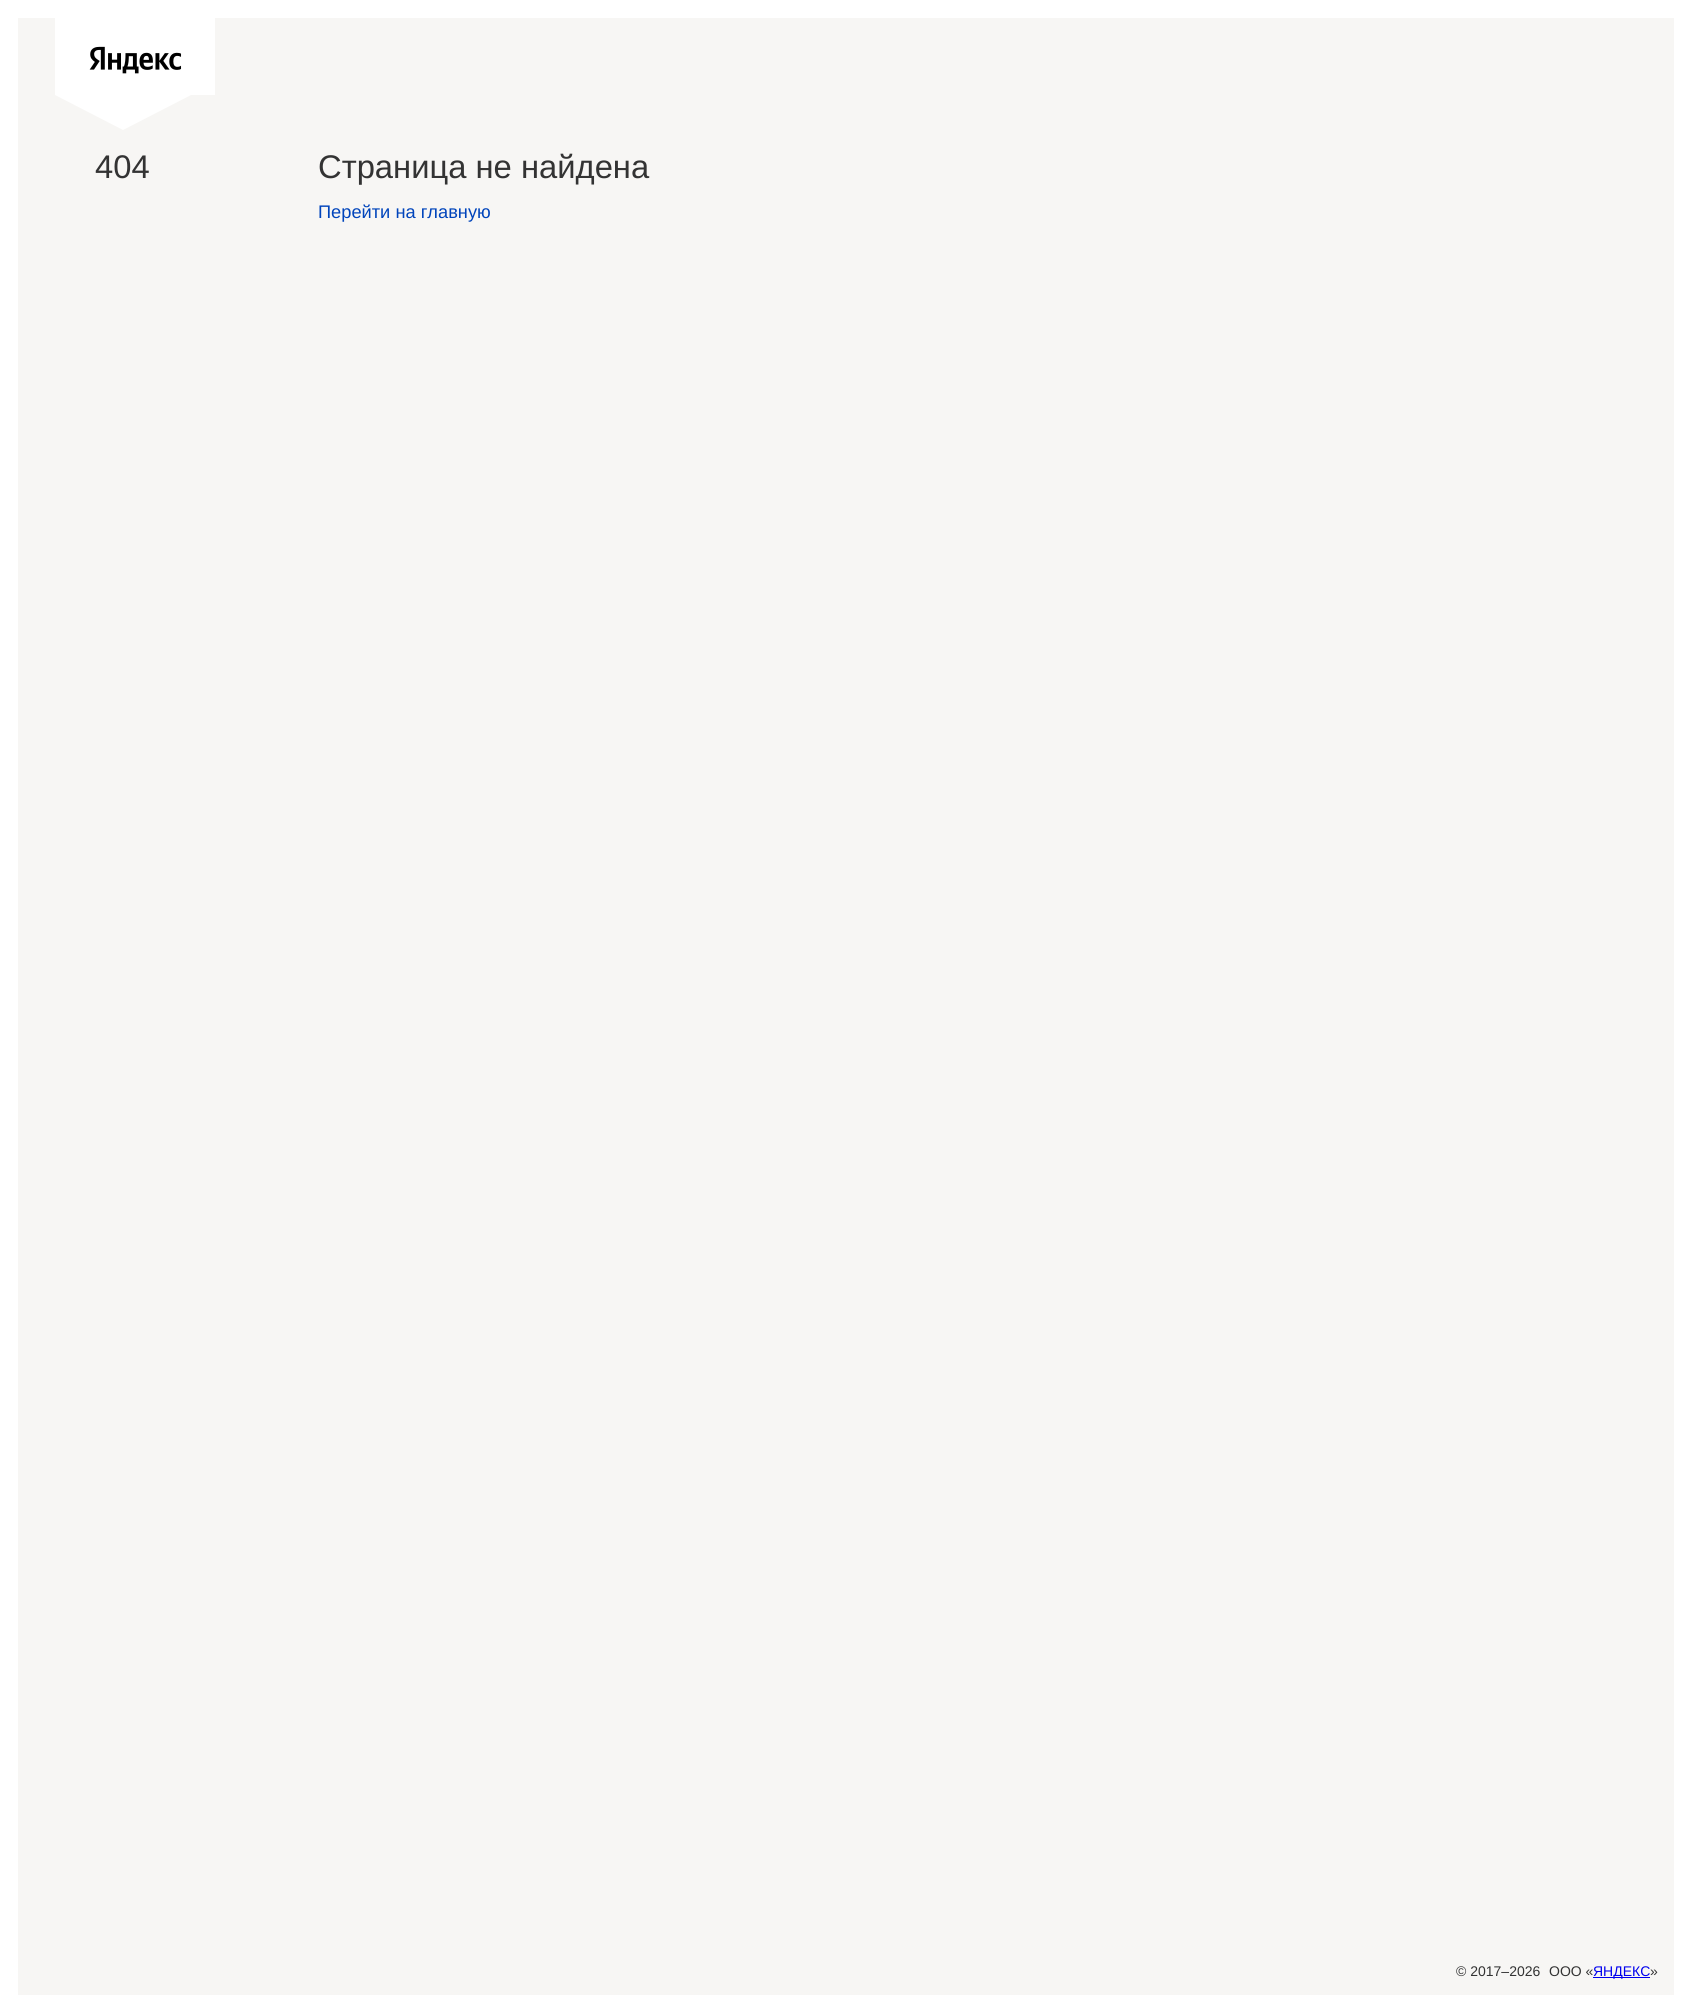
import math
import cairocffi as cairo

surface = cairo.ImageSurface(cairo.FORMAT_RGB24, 1692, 2013)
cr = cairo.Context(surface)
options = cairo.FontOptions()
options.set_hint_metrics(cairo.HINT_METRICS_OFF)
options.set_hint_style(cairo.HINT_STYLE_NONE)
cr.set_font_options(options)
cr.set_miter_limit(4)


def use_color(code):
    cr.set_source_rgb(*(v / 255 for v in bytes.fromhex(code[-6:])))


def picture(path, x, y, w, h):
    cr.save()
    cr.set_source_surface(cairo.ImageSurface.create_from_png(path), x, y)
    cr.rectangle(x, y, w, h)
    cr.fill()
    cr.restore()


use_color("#f7f6f4")
cr.paint()
cr.rectangle(9, 9, 1674, 1995)
use_color("#ffffff")
cr.set_line_width(18)
cr.stroke()
cr.rectangle(55, 18, 160, 77)
cr.fill()
picture("img1.png", 89, 46, 93, 28)
cr.new_path()
cr.move_to(55, 95)
cr.line_to(191, 95)
cr.line_to(123, 130)
cr.close_path()
cr.fill()
cr.select_font_face("Liberation Sans")
cr.set_font_size(32.75)
use_color("#333333")
cr.move_to(95, 178)
cr.show_text("404")
cr.move_to(318, 178)
cr.show_text("Страница не найдена")
cr.set_font_size(18.25)
use_color("#0044bb")
cr.move_to(318, 218)
cr.show_text("Перейти на главную")
cr.set_font_size(14)
use_color("#333333")
cr.move_to(1456, 1976)
cr.show_text("© 2017–2026")
cr.move_to(1549, 1976)
cr.show_text("ООО «")
use_color("#0000ee")
cr.rectangle(1593, 1977, 57, 1)
cr.fill()
cr.move_to(1593, 1976)
cr.show_text("ЯНДЕКС")
use_color("#333333")
cr.move_to(1650, 1976)
cr.show_text("»")
surface.write_to_png("result.png")
